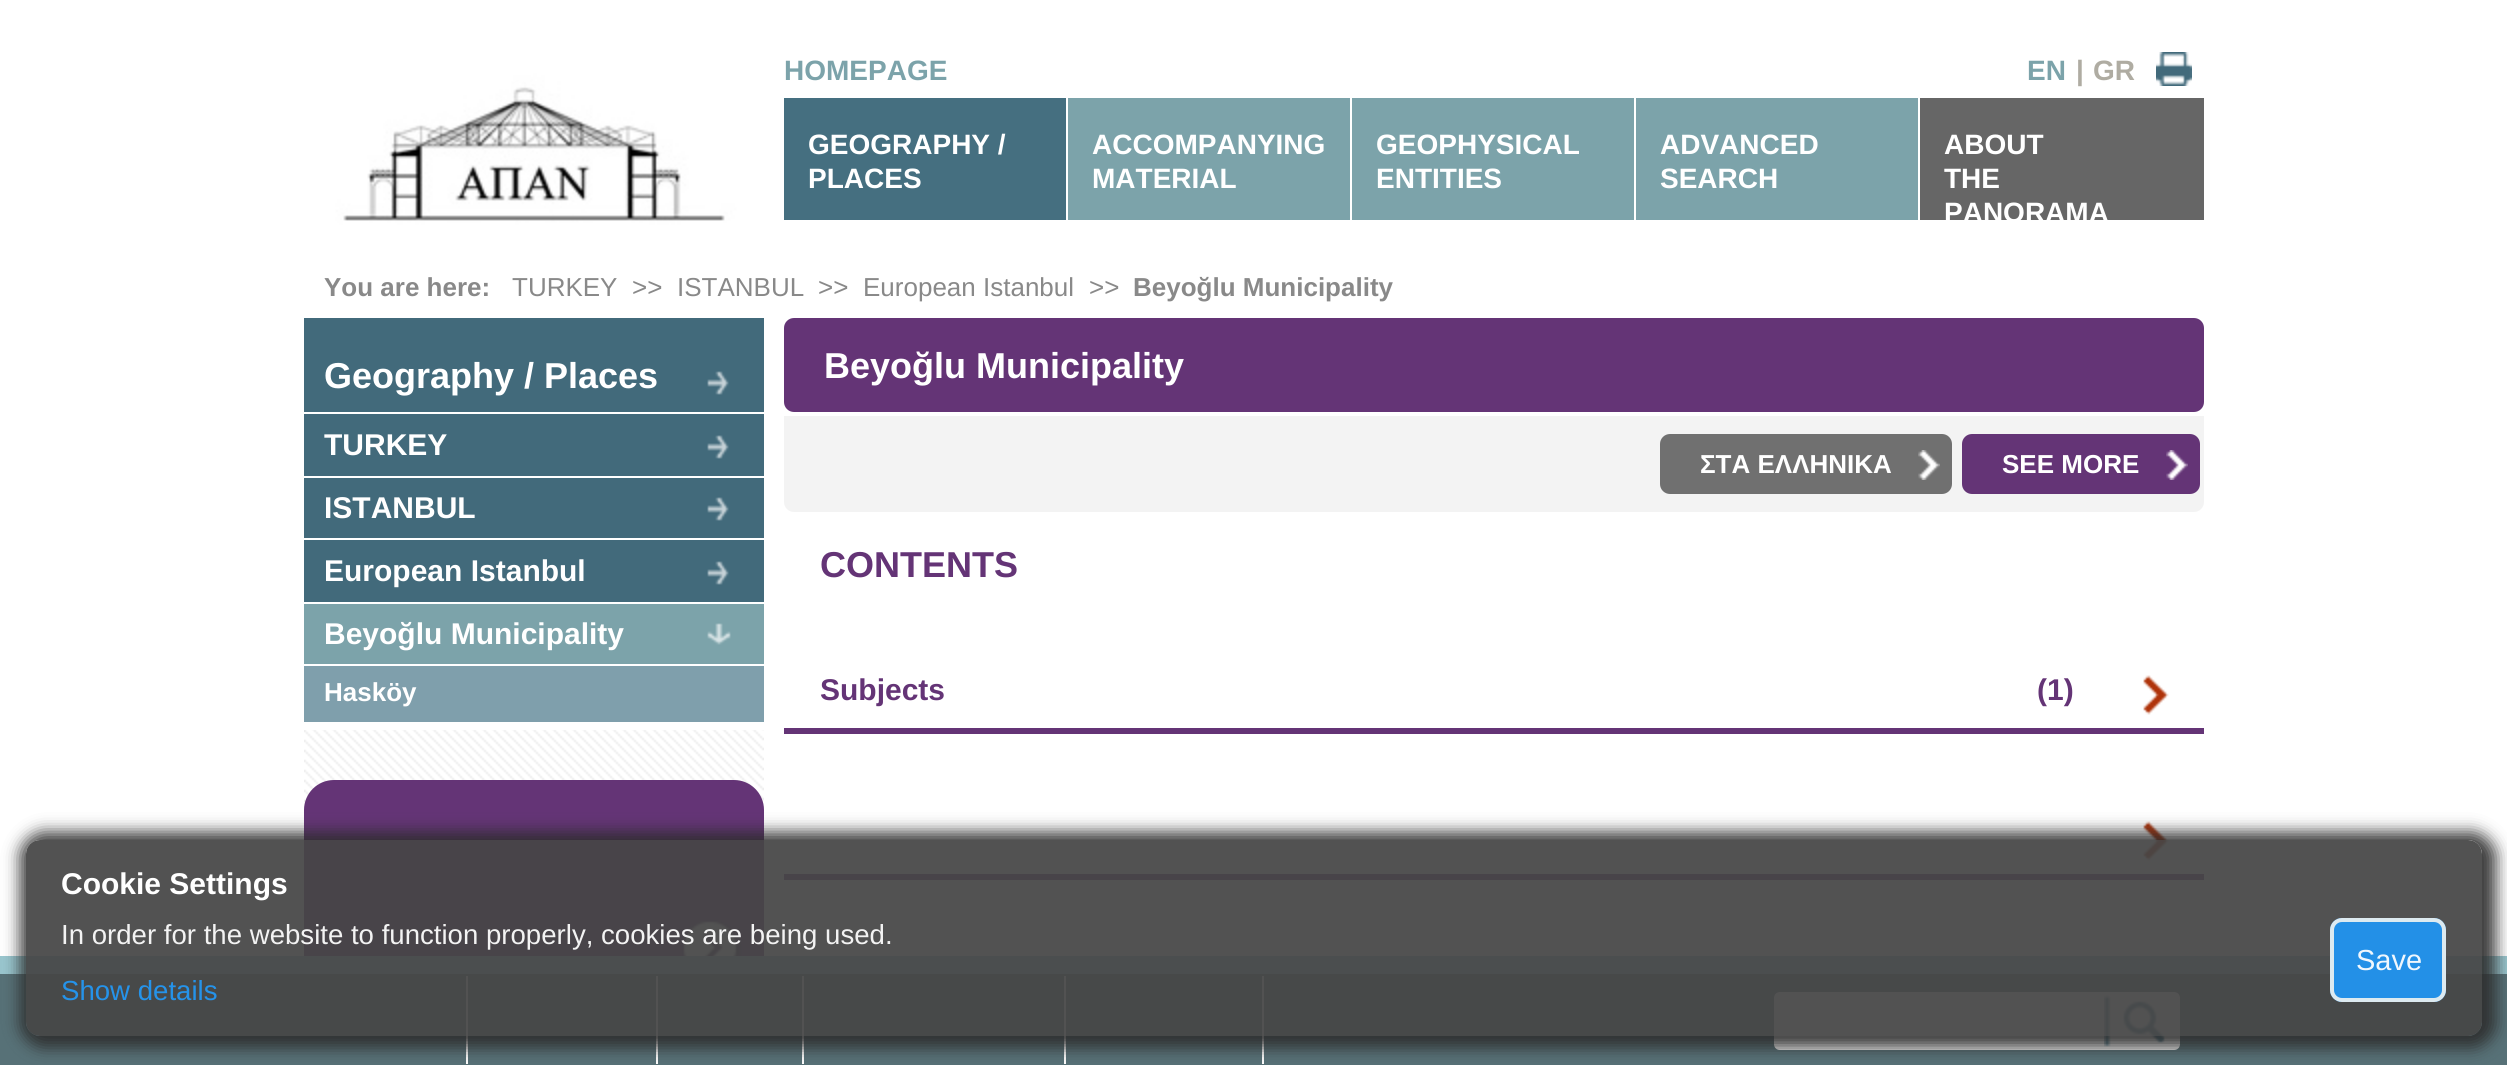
import math
import cairocffi as cairo

surface = cairo.ImageSurface(cairo.FORMAT_RGB24, 2507, 1065)
cr = cairo.Context(surface)
options = cairo.FontOptions()
options.set_hint_metrics(cairo.HINT_METRICS_OFF)
options.set_hint_style(cairo.HINT_STYLE_NONE)
cr.set_font_options(options)
cr.set_miter_limit(4)


def use_color(code):
    cr.set_source_rgb(*(v / 255 for v in bytes.fromhex(code[-6:])))


def round_rect(x, y, w, h, r):
    cr.new_sub_path()
    for i, (u, v) in enumerate([(x + w - r, y + h - r), (x + r, y + h - r), (x + r, y + r), (x + w - r, y + r)]):
        cr.arc(u, v, r, i * math.pi / 2, (i + 1) * math.pi / 2)
    cr.close_path()


def shadow(x, y, w, h, r, blur, alpha):
    cr.push_group_with_content(cairo.CONTENT_ALPHA)
    cr.set_operator(cairo.OPERATOR_SOURCE)
    for i in range(15, -16, -2):
        e = blur * i / 6
        if min(w, h) + 2 * e > 0:
            cr.set_source_rgba(0, 0, 0, alpha * math.erfc((i - 1) / 8.5) / 2)
            round_rect(x - e, y - e, w + 2 * e, h + 2 * e, max(0, min(r + e + blur * .6, min(w, h) / 2 + e)))
            cr.fill()
    cr.mask(cr.pop_group())


def picture(path, x, y, w, h):
    cr.save()
    cr.set_source_surface(cairo.ImageSurface.create_from_png(path), x, y)
    cr.rectangle(x, y, w, h)
    cr.fill()
    cr.restore()


use_color("#ffffff")
cr.paint()
picture("img1.png", 304, 730, 460, 80)
picture("img2.png", 304, 0, 460, 268)
cr.select_font_face("Liberation Sans", cairo.FONT_SLANT_NORMAL, cairo.FONT_WEIGHT_BOLD)
cr.set_font_size(28)
use_color("#7ca3aa")
cr.move_to(784, 80)
cr.show_text("HOMEPAGE")
cr.move_to(2027, 80)
cr.show_text("EN")
use_color("#afaca2")
cr.move_to(2076, 80)
cr.show_text("|")
cr.move_to(2093, 80)
cr.show_text("GR")
picture("img3.png", 2156, 52, 36, 34)
use_color("#666666")
cr.rectangle(1920, 98, 284, 122)
cr.fill()
use_color("#456f80")
cr.rectangle(784, 98, 282, 122)
cr.fill()
use_color("#ffffff")
cr.move_to(808, 154)
cr.show_text("GEOGRAPHY /")
cr.move_to(808, 188)
cr.show_text("PLACES")
use_color("#7ca3aa")
cr.rectangle(1068, 98, 282, 122)
cr.fill()
use_color("#ffffff")
cr.move_to(1092, 154)
cr.show_text("ACCOMPANYING")
cr.move_to(1092, 188)
cr.show_text("MATERIAL")
use_color("#7ca3aa")
cr.rectangle(1352, 98, 282, 122)
cr.fill()
use_color("#ffffff")
cr.move_to(1376, 154)
cr.show_text("GEOPHYSICAL")
cr.move_to(1376, 188)
cr.show_text("ENTITIES")
use_color("#7ca3aa")
cr.rectangle(1636, 98, 282, 122)
cr.fill()
use_color("#ffffff")
cr.move_to(1660, 154)
cr.show_text("ADVANCED")
cr.move_to(1660, 188)
cr.show_text("SEARCH")
cr.move_to(1944, 154)
cr.show_text("ABOUT")
cr.move_to(1944, 188)
cr.show_text("THE")
cr.save()
cr.rectangle(784, 98, 1420, 122)
cr.clip()
cr.move_to(1944, 222)
cr.show_text("PANORAMA")
cr.restore()
cr.set_font_size(26)
use_color("#898989")
cr.move_to(324, 296)
cr.show_text("You are here:")
cr.select_font_face("Liberation Sans")
cr.move_to(512, 296)
cr.show_text("TURKEY")
cr.move_to(632, 296)
cr.show_text(">>")
cr.move_to(677, 296)
cr.show_text("ISTANBUL")
cr.move_to(818, 296)
cr.show_text(">>")
cr.move_to(863, 296)
cr.show_text("European Istanbul")
cr.move_to(1089, 296)
cr.show_text(">>")
cr.select_font_face("Liberation Sans", cairo.FONT_SLANT_NORMAL, cairo.FONT_WEIGHT_BOLD)
cr.move_to(1133, 296)
cr.show_text("Beyoğlu Municipality")
use_color("#426a7b")
cr.rectangle(304, 318, 460, 94)
cr.fill()
picture("img4.png", 707, 371, 22, 24)
cr.set_font_size(36)
use_color("#ffffff")
cr.move_to(324, 388)
cr.show_text("Geography / Places")
use_color("#426a7b")
cr.rectangle(304, 414, 460, 62)
cr.fill()
picture("img4.png", 707, 435, 22, 24)
cr.set_font_size(30)
use_color("#ffffff")
cr.move_to(324, 455)
cr.show_text("TURKEY")
use_color("#426a7b")
cr.rectangle(304, 478, 460, 60)
cr.fill()
picture("img4.png", 707, 497, 22, 24)
use_color("#ffffff")
cr.move_to(324, 518)
cr.show_text("ISTANBUL")
use_color("#426a7b")
cr.rectangle(304, 540, 460, 62)
cr.fill()
picture("img4.png", 707, 561, 22, 24)
use_color("#ffffff")
cr.move_to(324, 581)
cr.show_text("European Istanbul")
use_color("#7ca3aa")
cr.rectangle(304, 604, 460, 60)
cr.fill()
picture("img5.png", 707, 623, 24, 22)
use_color("#ffffff")
cr.move_to(324, 644)
cr.show_text("Beyoğlu Municipality")
use_color("#7f9fac")
cr.rectangle(304, 666, 460, 56)
cr.fill()
cr.set_font_size(26)
use_color("#ffffff")
cr.move_to(324, 701)
cr.show_text("Hasköy")
use_color("#643476")
round_rect(304, 780, 460, 218, 30)
cr.fill()
picture("img6.png", 682, 920, 60, 36)
round_rect(784, 318, 1420, 94, 10)
cr.fill()
cr.set_font_size(36)
use_color("#ffffff")
cr.move_to(824, 378)
cr.show_text("Beyoğlu Municipality")
use_color("#f3f3f3")
cr.new_path()
cr.move_to(784, 416)
cr.line_to(2204, 416)
cr.line_to(2204, 502)
cr.curve_to(2204, 507.5, 2199.5, 512, 2194, 512)
cr.line_to(794, 512)
cr.curve_to(788.5, 512, 784, 507.5, 784, 502)
cr.close_path()
cr.fill()
use_color("#707070")
round_rect(1660, 434, 292, 60, 10)
cr.fill()
cr.set_font_size(26)
use_color("#ffffff")
cr.move_to(1700, 473)
cr.show_text("ΣΤΑ ΕΛΛΗΝΙΚΑ")
picture("img7.png", 1918, 450, 22, 30)
use_color("#643476")
round_rect(1962, 434, 238, 60, 10)
cr.fill()
use_color("#ffffff")
cr.move_to(2002, 473)
cr.show_text("SEE MORE")
picture("img8.png", 2166, 450, 22, 30)
cr.set_font_size(36)
use_color("#643476")
cr.move_to(820, 577)
cr.show_text("CONTENTS")
picture("img9.png", 2143, 675, 26, 40)
cr.rectangle(784, 728, 1420, 6)
cr.fill()
cr.set_font_size(30)
cr.move_to(820, 700)
cr.show_text("Subjects")
cr.move_to(2037, 700)
cr.show_text("(1)")
picture("img9.png", 2143, 821, 26, 40)
cr.rectangle(784, 874, 1420, 6)
cr.fill()
use_color("#577177")
cr.rectangle(0, 974, 2507, 91)
cr.fill()
use_color("#99c6ce")
cr.rectangle(0, 956, 2507, 18)
cr.fill()
use_color("#ffffff")
cr.rectangle(466, 976, 2, 88)
cr.fill()
cr.rectangle(656, 976, 2, 88)
cr.fill()
cr.rectangle(802, 976, 2, 88)
cr.fill()
cr.rectangle(1064, 976, 2, 88)
cr.fill()
cr.rectangle(1262, 976, 2, 88)
cr.fill()
cr.new_path()
cr.move_to(1780, 992)
cr.line_to(2104, 992)
cr.line_to(2104, 1050)
cr.line_to(1780, 1050)
cr.curve_to(1776.5, 1050, 1774, 1047.5, 1774, 1044)
cr.line_to(1774, 998)
cr.curve_to(1774, 994.5, 1776.5, 992, 1780, 992)
cr.close_path()
cr.fill()
cr.new_path()
cr.move_to(2104, 992)
cr.line_to(2174, 992)
cr.curve_to(2177.5, 992, 2180, 994.5, 2180, 998)
cr.line_to(2180, 1044)
cr.curve_to(2180, 1047.5, 2177.5, 1050, 2174, 1050)
cr.line_to(2104, 1050)
cr.close_path()
cr.fill()
picture("img10.png", 2104, 995, 61, 52)
cr.save()
cr.set_fill_rule(cairo.FILL_RULE_EVEN_ODD)
cr.new_path()
cr.move_to(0, 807)
cr.line_to(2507, 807)
cr.line_to(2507, 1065)
cr.line_to(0, 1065)
cr.close_path()
cr.move_to(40, 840)
cr.line_to(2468, 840)
cr.curve_to(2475.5, 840, 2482, 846.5, 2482, 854)
cr.line_to(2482, 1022)
cr.curve_to(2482, 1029.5, 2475.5, 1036, 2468, 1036)
cr.line_to(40, 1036)
cr.curve_to(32.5, 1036, 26, 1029.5, 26, 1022)
cr.line_to(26, 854)
cr.curve_to(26, 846.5, 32.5, 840, 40, 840)
cr.close_path()
cr.clip()
use_color("#2d2d2d")
shadow(20, 832, 2476, 216, 24, 8, 0.93)
cr.restore()
cr.set_source_rgba(0.275, 0.275, 0.275, 0.93)
round_rect(26, 840, 2456, 196, 14)
cr.fill()
use_color("#ffffff")
cr.move_to(61, 894)
cr.show_text("Cookie Settings")
cr.select_font_face("Liberation Sans")
cr.set_font_size(27.6)
use_color("#f3f3f3")
cr.move_to(61, 944)
cr.show_text("In order for the website to function properly, cookies are being used.")
use_color("#2593ea")
cr.move_to(61, 1000)
cr.show_text("Show details")
cr.set_source_rgba(0.129, 0.588, 0.953, 0.93)
round_rect(2330, 918, 116, 84, 12)
cr.fill()
round_rect(2332, 920, 112, 80, 10)
cr.set_source_rgba(0.922, 0.945, 0.949, 0.93)
cr.set_line_width(4)
cr.stroke()
cr.set_font_size(29)
use_color("#f0f7fd")
cr.move_to(2356, 970)
cr.show_text("Save")
surface.write_to_png("result.png")
